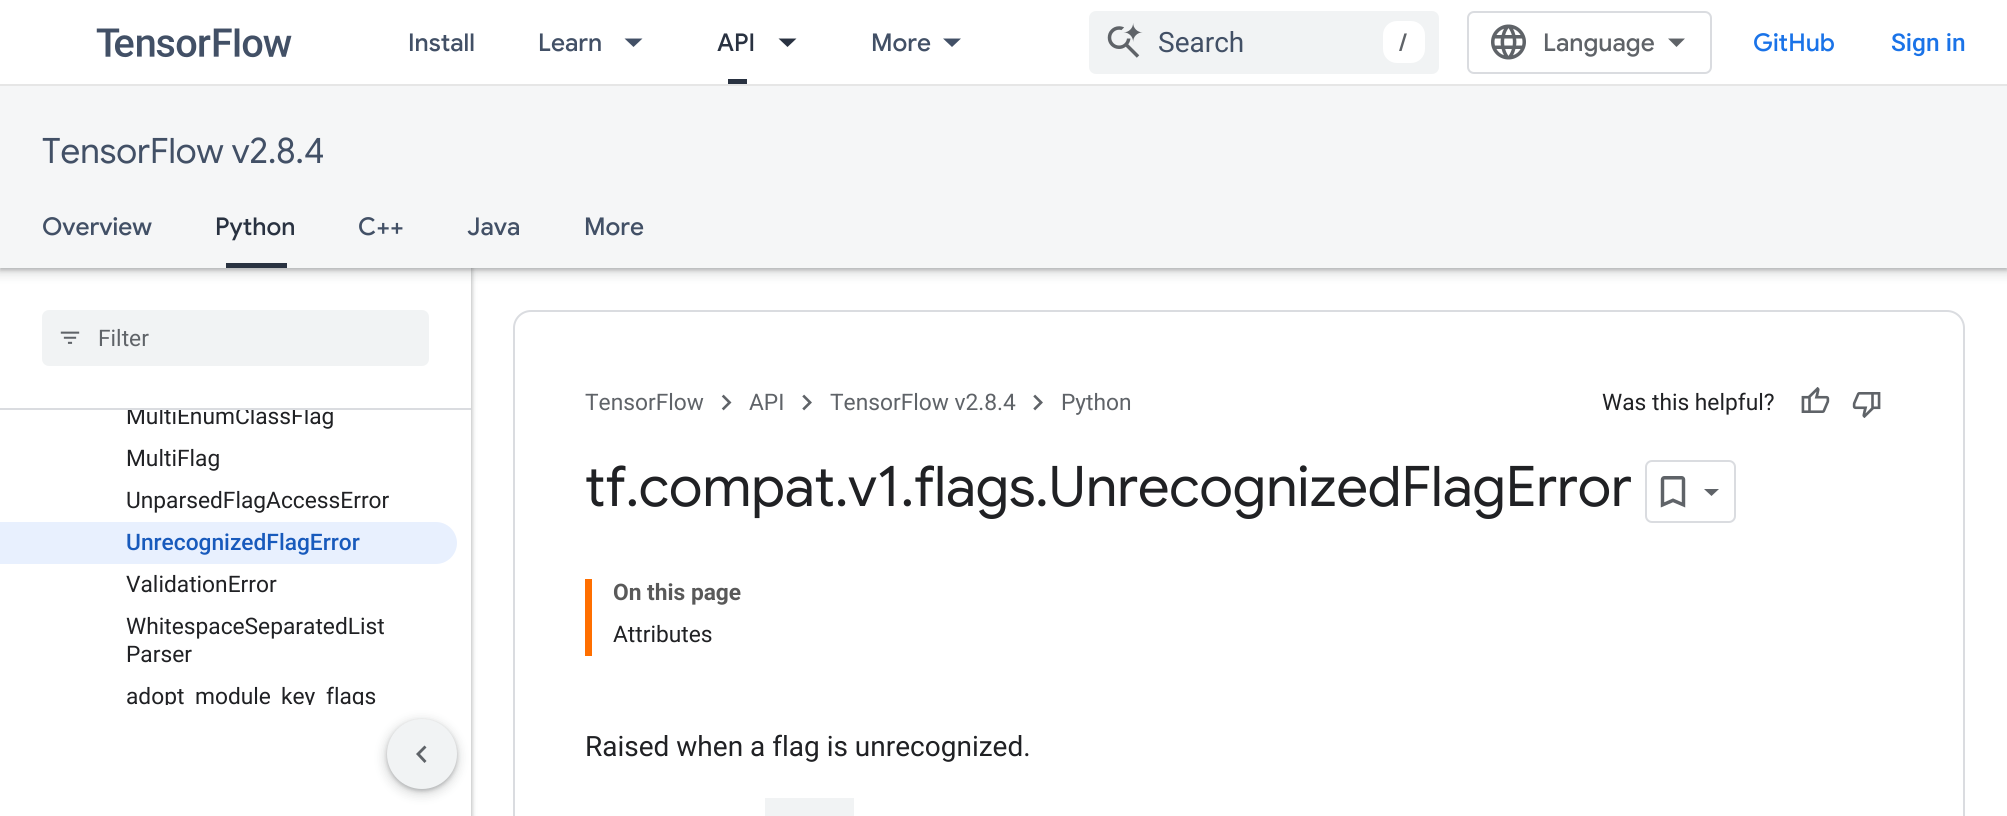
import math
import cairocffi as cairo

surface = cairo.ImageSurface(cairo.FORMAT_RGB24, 2007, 816)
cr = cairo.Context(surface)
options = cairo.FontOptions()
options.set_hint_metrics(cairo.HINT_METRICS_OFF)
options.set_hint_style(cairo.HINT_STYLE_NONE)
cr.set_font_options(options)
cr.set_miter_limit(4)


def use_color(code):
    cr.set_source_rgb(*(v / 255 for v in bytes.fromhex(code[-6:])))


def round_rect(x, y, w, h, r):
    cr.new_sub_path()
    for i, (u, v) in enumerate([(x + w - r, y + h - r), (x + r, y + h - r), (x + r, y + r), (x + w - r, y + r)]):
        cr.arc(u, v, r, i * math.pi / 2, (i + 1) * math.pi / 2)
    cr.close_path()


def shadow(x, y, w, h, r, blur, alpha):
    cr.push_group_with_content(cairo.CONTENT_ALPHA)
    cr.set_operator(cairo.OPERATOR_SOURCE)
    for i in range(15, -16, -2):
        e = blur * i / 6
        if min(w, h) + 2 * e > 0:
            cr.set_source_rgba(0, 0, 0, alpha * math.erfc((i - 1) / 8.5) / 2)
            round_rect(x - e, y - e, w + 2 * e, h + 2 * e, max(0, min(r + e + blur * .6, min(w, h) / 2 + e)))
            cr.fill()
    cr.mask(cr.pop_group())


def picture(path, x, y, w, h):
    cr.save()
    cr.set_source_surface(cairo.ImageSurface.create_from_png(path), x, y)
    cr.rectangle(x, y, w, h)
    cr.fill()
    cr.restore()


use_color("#ffffff")
cr.paint()
use_color("#3c4043")
shadow(-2, 0, 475, 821, 0, 2.5, 0.15)
shadow(0, 2, 471, 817, 0, 2, 0.3)
use_color("#ffffff")
cr.rectangle(0, 410, 471, 295)
cr.fill()
cr.select_font_face("Roboto")
cr.set_font_size(22.75)
use_color("#202124")
cr.move_to(126, 424)
cr.show_text("MultiEnumClassFlag")
use_color("#ffffff")
cr.rectangle(0, 268, 471, 140)
cr.fill()
use_color("#3c4043")
shadow(-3, 86, 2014, 189, 0, 5, 0.15)
shadow(0, 88, 2007, 182, 0, 2, 0.3)
use_color("#ffffff")
cr.rectangle(0, 0, 2007, 84)
cr.fill()
use_color("#e6e6e6")
cr.rectangle(0, 84, 2007, 2)
cr.fill()
picture("img1.png", 96, 28, 196, 30)
cr.select_font_face("Google Sans Medium")
cr.set_font_size(24.5)
use_color("#425066")
cr.move_to(408, 51)
cr.show_text("Install")
cr.move_to(538, 51)
cr.show_text("Learn")
cr.new_path()
cr.move_to(624.5, 38.5)
cr.line_to(642.5, 38.5)
cr.line_to(633.5, 47)
cr.close_path()
cr.fill()
use_color("#293241")
cr.move_to(717, 51)
cr.show_text("API")
cr.rectangle(728, 79, 19, 5)
cr.fill()
cr.new_path()
cr.move_to(778.5, 38.5)
cr.line_to(796.5, 38.5)
cr.line_to(787.5, 47)
cr.close_path()
cr.fill()
use_color("#425066")
cr.move_to(871, 51)
cr.show_text("More")
cr.new_path()
cr.move_to(943, 38.5)
cr.line_to(961, 38.5)
cr.line_to(952, 47)
cr.close_path()
cr.fill()
use_color("#f1f3f4")
round_rect(1089, 11, 350, 63, 7)
cr.fill()
picture("img2.png", 1107, 23, 36, 35)
cr.select_font_face("Roboto")
cr.set_font_size(28)
use_color("#425066")
cr.move_to(1158, 52)
cr.show_text("Search")
use_color("#ffffff")
round_rect(1383, 21, 42, 42, 14)
cr.fill()
cr.select_font_face("Google Sans Medium")
cr.set_font_size(24.5)
use_color("#5f6368")
cr.move_to(1399, 51)
cr.show_text("/")
round_rect(1468, 12, 243, 61, 6)
use_color("#dadce0")
cr.stroke()
picture("img3.png", 1491, 24, 35, 36)
use_color("#5f6368")
cr.move_to(1543, 51)
cr.show_text("Language")
cr.new_path()
cr.move_to(1676.5, 47)
cr.line_to(1668, 38.5)
cr.line_to(1685, 38.5)
cr.close_path()
cr.fill()
use_color("#1a73e8")
cr.move_to(1753, 51)
cr.show_text("GitHub")
cr.select_font_face("Roboto Medium")
cr.move_to(1891, 51)
cr.show_text("Sign in")
use_color("#f5f6f7")
cr.rectangle(0, 86, 2007, 182)
cr.fill()
cr.select_font_face("Google Sans")
cr.set_font_size(35)
use_color("#425066")
cr.move_to(42, 163)
cr.show_text("TensorFlow v2.8.4")
cr.select_font_face("Google Sans Medium")
cr.set_font_size(24.5)
cr.move_to(42, 235)
cr.show_text("Overview")
use_color("#293241")
cr.move_to(215, 235)
cr.show_text("Python")
cr.rectangle(226, 263, 61, 5)
cr.fill()
use_color("#425066")
cr.move_to(358, 235)
cr.show_text("C++")
cr.move_to(467, 235)
cr.show_text("Java")
cr.move_to(584, 235)
cr.show_text("More")
use_color("#dadce0")
cr.rectangle(0, 408, 471, 2)
cr.fill()
use_color("#f1f3f4")
round_rect(42, 310, 387, 56, 7)
cr.fill()
picture("img4.png", 60, 331, 20, 13)
cr.select_font_face("Roboto")
cr.set_font_size(22.75)
use_color("#5f6368")
cr.move_to(98, 346)
cr.show_text("Filter")
use_color("#202124")
cr.move_to(126, 466)
cr.show_text("MultiFlag")
cr.move_to(126, 508)
cr.show_text("UnparsedFlagAccessError")
use_color("#e8f0fe")
cr.new_path()
cr.move_to(0, 522)
cr.line_to(436, 522)
cr.curve_to(447.5, 522, 457, 531.5, 457, 543)
cr.curve_to(457, 554.5, 447.5, 564, 436, 564)
cr.line_to(0, 564)
cr.close_path()
cr.fill()
cr.select_font_face("Roboto Medium")
use_color("#185abc")
cr.move_to(126, 550)
cr.show_text("UnrecognizedFlagError")
cr.select_font_face("Roboto")
use_color("#202124")
cr.move_to(126, 592)
cr.show_text("ValidationError")
cr.move_to(126, 634)
cr.show_text("WhitespaceSeparatedList")
cr.move_to(126, 662)
cr.show_text("Parser")
cr.move_to(126, 704)
cr.show_text("adopt")
cr.move_to(195, 704)
cr.show_text("module")
cr.move_to(281, 704)
cr.show_text("key")
cr.move_to(326, 704)
cr.show_text("flags")
use_color("#ffffff")
cr.rectangle(0, 705, 471, 111)
cr.fill()
use_color("#3c4043")
shadow(383, 719, 77, 77, 38.5, 5, 0.15)
shadow(387, 721, 70, 70, 35, 2, 0.3)
use_color("#f1f3f4")
cr.arc(422, 754, 35, 0, 2 * math.pi)
cr.fill()
use_color("#5f6368")
cr.new_path()
cr.move_to(426.5, 747.5)
cr.line_to(420, 754)
cr.line_to(426.5, 761)
cr.line_to(424.5, 763)
cr.line_to(416, 754)
cr.line_to(424.5, 745.5)
cr.close_path()
cr.fill()
round_rect(514, 311, 1450, 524, 17)
use_color("#dadce0")
cr.stroke()
use_color("#5f6368")
cr.move_to(585, 410)
cr.show_text("TensorFlow")
picture("img5.png", 721, 394, 11, 17)
cr.move_to(749, 410)
cr.show_text("API")
picture("img6.png", 802, 394, 10, 17)
cr.move_to(830, 410)
cr.show_text("TensorFlow v2.8.4")
picture("img6.png", 1033, 394, 10, 17)
cr.move_to(1061, 410)
cr.show_text("Python")
use_color("#202124")
cr.move_to(1602, 410)
cr.show_text("Was this helpful?")
picture("img7.png", 1801, 387, 29, 26)
picture("img8.png", 1852, 392, 29, 26)
cr.select_font_face("Google Sans")
cr.set_font_size(56)
cr.move_to(585, 506)
cr.show_text("tf.compat.v1.flags.UnrecognizedFlagError")
round_rect(1646, 461, 89, 61, 6)
use_color("#dadce0")
cr.stroke()
picture("img9.png", 1660, 476, 26, 32)
use_color("#5f6368")
cr.new_path()
cr.move_to(1704, 489)
cr.line_to(1719, 489)
cr.line_to(1711.5, 496)
cr.close_path()
cr.fill()
use_color("#ff6f00")
cr.rectangle(585, 579, 7, 77)
cr.fill()
cr.select_font_face("Roboto", cairo.FONT_SLANT_NORMAL, cairo.FONT_WEIGHT_BOLD)
cr.set_font_size(22.75)
use_color("#595959")
cr.move_to(613, 600)
cr.show_text("On this page")
cr.select_font_face("Roboto")
use_color("#202124")
cr.move_to(613, 642)
cr.show_text("Attributes")
cr.set_font_size(28)
cr.move_to(585, 756)
cr.show_text("Raised when a flag is unrecognized.")
use_color("#f1f3f4")
cr.rectangle(765, 798, 89, 18)
cr.fill()
surface.write_to_png("result.png")
